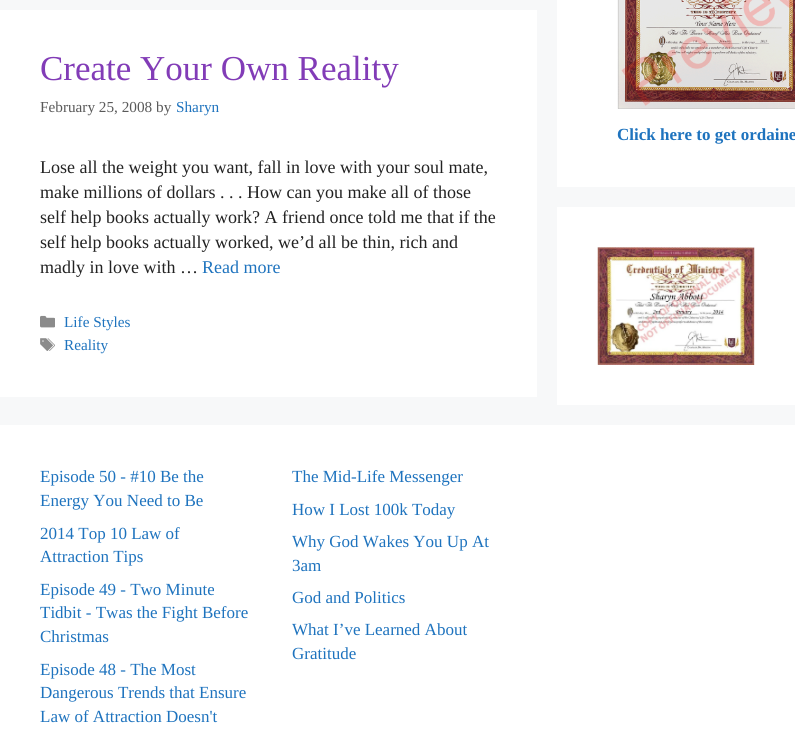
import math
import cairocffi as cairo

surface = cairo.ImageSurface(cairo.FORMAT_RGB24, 795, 740)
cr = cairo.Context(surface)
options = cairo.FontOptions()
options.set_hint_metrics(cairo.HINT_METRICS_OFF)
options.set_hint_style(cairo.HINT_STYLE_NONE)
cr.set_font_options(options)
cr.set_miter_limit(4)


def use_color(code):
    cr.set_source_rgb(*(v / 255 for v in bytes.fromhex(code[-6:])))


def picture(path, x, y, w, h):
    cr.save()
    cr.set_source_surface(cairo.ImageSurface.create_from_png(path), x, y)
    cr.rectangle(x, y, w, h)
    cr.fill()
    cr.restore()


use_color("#f7f8f9")
cr.paint()
use_color("#ffffff")
cr.rectangle(0, 10, 537, 387)
cr.fill()
cr.select_font_face("Liberation Serif")
cr.set_font_size(35)
use_color("#823cb7")
cr.move_to(40, 80)
cr.show_text("Create Your Own Reality")
cr.set_font_size(15.25)
use_color("#595959")
cr.move_to(40, 112)
cr.show_text("February 25, 2008 by")
use_color("#1e73be")
cr.move_to(176, 112)
cr.show_text("Sharyn")
cr.set_font_size(18)
use_color("#222222")
cr.move_to(40, 173)
cr.show_text("Lose all the weight you want, fall in love with your soul mate,")
cr.move_to(40, 198)
cr.show_text("make millions of dollars . . . How can you make all of those")
cr.move_to(40, 223)
cr.show_text("self help books actually work? A friend once told me that if the")
cr.move_to(40, 248)
cr.show_text("self help books actually worked, we’d all be thin, rich and")
cr.move_to(40, 273)
cr.show_text("madly in love with …")
use_color("#1e73be")
cr.move_to(202, 273)
cr.show_text("Read more")
picture("img1.png", 40, 315, 15, 13)
cr.set_font_size(15.25)
cr.move_to(64, 327)
cr.show_text("Life Styles")
picture("img2.png", 40, 338, 15, 13)
cr.move_to(64, 350)
cr.show_text("Reality")
use_color("#ffffff")
cr.rectangle(557, 0, 238, 187)
cr.fill()
picture("img3.png", 617, 0, 178, 109)
cr.select_font_face("Liberation Serif", cairo.FONT_SLANT_NORMAL, cairo.FONT_WEIGHT_BOLD)
cr.set_font_size(17)
use_color("#1e73be")
cr.move_to(617, 140)
cr.show_text("Click here to get ordaine")
use_color("#ffffff")
cr.rectangle(557, 207, 238, 198)
cr.fill()
picture("img4.png", 597, 247, 158, 118)
cr.rectangle(0, 425, 795, 315)
cr.fill()
cr.select_font_face("Liberation Serif")
use_color("#1e73be")
cr.move_to(40, 482)
cr.show_text("Episode 50 - #10 Be the")
cr.move_to(40, 506)
cr.show_text("Energy You Need to Be")
cr.move_to(40, 539)
cr.show_text("2014 Top 10 Law of")
cr.move_to(40, 562)
cr.show_text("Attraction Tips")
cr.move_to(40, 595)
cr.show_text("Episode 49 - Two Minute")
cr.move_to(40, 618)
cr.show_text("Tidbit - Twas the Fight Before")
cr.move_to(40, 642)
cr.show_text("Christmas")
cr.move_to(40, 675)
cr.show_text("Episode 48 - The Most")
cr.move_to(40, 698)
cr.show_text("Dangerous Trends that Ensure")
cr.move_to(40, 722)
cr.show_text("Law of Attraction Doesn't")
cr.move_to(292, 482)
cr.show_text("The Mid-Life Messenger")
cr.move_to(292, 515)
cr.show_text("How I Lost 100k Today")
cr.move_to(292, 547)
cr.show_text("Why God Wakes You Up At")
cr.move_to(292, 571)
cr.show_text("3am")
cr.move_to(292, 603)
cr.show_text("God and Politics")
cr.move_to(292, 635)
cr.show_text("What I’ve Learned About")
cr.move_to(292, 659)
cr.show_text("Gratitude")
surface.write_to_png("result.png")
